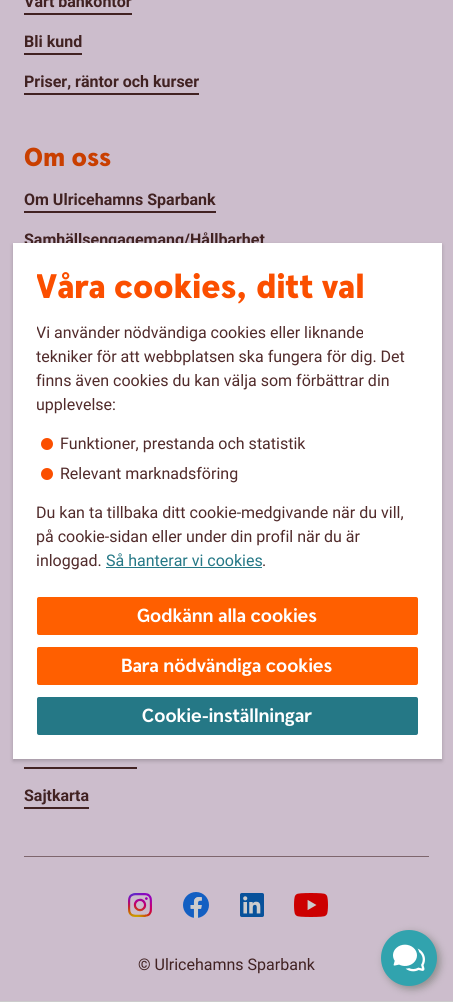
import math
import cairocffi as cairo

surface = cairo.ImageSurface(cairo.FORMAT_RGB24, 453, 1002)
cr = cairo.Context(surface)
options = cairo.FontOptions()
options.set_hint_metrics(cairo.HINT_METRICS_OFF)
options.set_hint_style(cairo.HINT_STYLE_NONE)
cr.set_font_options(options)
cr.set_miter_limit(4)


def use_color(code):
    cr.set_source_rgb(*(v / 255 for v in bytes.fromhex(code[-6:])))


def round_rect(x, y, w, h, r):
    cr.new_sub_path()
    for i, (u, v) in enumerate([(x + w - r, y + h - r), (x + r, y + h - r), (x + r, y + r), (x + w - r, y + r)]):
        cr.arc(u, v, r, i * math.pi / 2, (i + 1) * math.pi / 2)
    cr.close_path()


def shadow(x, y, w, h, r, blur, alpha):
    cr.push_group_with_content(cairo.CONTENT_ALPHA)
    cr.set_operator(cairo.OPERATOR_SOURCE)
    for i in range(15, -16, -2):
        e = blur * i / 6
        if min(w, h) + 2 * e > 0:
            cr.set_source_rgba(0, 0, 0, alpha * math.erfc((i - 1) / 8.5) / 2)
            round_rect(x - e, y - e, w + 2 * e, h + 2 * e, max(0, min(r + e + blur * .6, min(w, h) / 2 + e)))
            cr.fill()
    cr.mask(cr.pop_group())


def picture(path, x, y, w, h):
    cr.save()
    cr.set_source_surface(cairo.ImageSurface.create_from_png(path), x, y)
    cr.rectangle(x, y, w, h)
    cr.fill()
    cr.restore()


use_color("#cccccc")
cr.paint()
use_color("#ccbdcc")
cr.rectangle(0, 0, 453, 1001)
cr.fill()
cr.select_font_face("Roboto", cairo.FONT_SLANT_NORMAL, cairo.FONT_WEIGHT_BOLD)
cr.set_font_size(16)
use_color("#412222")
cr.move_to(24, 7)
cr.show_text("Vårt bankontor")
cr.rectangle(24, 13, 108, 2)
cr.fill()
cr.move_to(24, 47)
cr.show_text("Bli kund")
cr.rectangle(24, 53, 58, 2)
cr.fill()
cr.move_to(24, 87)
cr.show_text("Priser, räntor och kurser")
cr.rectangle(24, 93, 175, 2)
cr.fill()
cr.select_font_face("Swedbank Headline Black")
cr.set_font_size(26)
use_color("#c93f00")
cr.move_to(24, 166)
cr.show_text("Om oss")
cr.select_font_face("Roboto", cairo.FONT_SLANT_NORMAL, cairo.FONT_WEIGHT_BOLD)
cr.set_font_size(16)
use_color("#412222")
cr.move_to(24, 205)
cr.show_text("Om Ulricehamns Sparbank")
cr.rectangle(24, 211, 192, 2)
cr.fill()
cr.move_to(24, 245)
cr.show_text("Samhällsengagemang/Hållbarhet")
cr.rectangle(24, 767, 113, 2)
cr.fill()
cr.move_to(24, 801)
cr.show_text("Sajtkarta")
cr.rectangle(24, 807, 65, 2)
cr.fill()
use_color("#7e666d")
cr.rectangle(24, 856, 405, 1)
cr.fill()
picture("img1.png", 128, 893, 24, 24)
picture("img2.png", 183, 892, 26, 26)
picture("img3.png", 240, 893, 24, 24)
picture("img4.png", 294, 893, 34, 24)
cr.select_font_face("Roboto")
use_color("#412222")
cr.move_to(138, 970)
cr.show_text("© Ulricehamns Sparbank")
use_color("#000000")
shadow(13, 245, 429, 516, 0, 2, 0.2)
use_color("#ffffff")
cr.rectangle(13, 243, 429, 516)
cr.fill()
cr.save()
cr.rectangle(37, 267, 381, 306)
cr.clip()
cr.select_font_face("Swedbank Headline Black")
cr.set_font_size(34)
use_color("#fb4f00")
cr.move_to(36, 298)
cr.show_text("Våra cookies, ditt val")
cr.select_font_face("Roboto")
cr.set_font_size(16)
use_color("#512b2b")
cr.move_to(36, 338)
cr.show_text("Vi använder nödvändiga cookies eller liknande")
cr.restore()
use_color("#512b2b")
cr.move_to(36, 362)
cr.show_text("tekniker för att webbplatsen ska fungera för dig. Det")
cr.move_to(36, 386)
cr.show_text("finns även cookies du kan välja som förbättrar din")
cr.move_to(36, 410)
cr.show_text("upplevelse:")
use_color("#fb4f00")
cr.new_path()
cr.arc(47, 444, 6, 0, 2 * math.pi)
cr.fill()
use_color("#512b2b")
cr.move_to(60, 449)
cr.show_text("Funktioner, prestanda och statistik")
use_color("#fb4f00")
cr.new_path()
cr.arc(47, 474, 6, 0, 2 * math.pi)
cr.fill()
use_color("#512b2b")
cr.move_to(60, 479)
cr.show_text("Relevant marknadsföring")
cr.move_to(36, 518)
cr.show_text("Du kan ta tillbaka ditt cookie-medgivande när du vill,")
cr.move_to(36, 542)
cr.show_text("på cookie-sidan eller under din profil när du är")
cr.move_to(36, 566)
cr.show_text("inloggad.")
use_color("#257886")
cr.move_to(106, 566)
cr.show_text("Så hanterar vi cookies")
cr.rectangle(106, 567, 156, 1)
cr.fill()
use_color("#512b2b")
cr.move_to(262, 566)
cr.show_text(".")
use_color("#ff5f00")
round_rect(37, 597, 381, 38, 2)
cr.fill()
cr.select_font_face("Swedbank Headline", cairo.FONT_SLANT_NORMAL, cairo.FONT_WEIGHT_BOLD)
cr.set_font_size(19)
use_color("#ffffff")
cr.move_to(137, 622)
cr.show_text("Godkänn alla cookies")
use_color("#ff5f00")
round_rect(37, 647, 381, 38, 2)
cr.fill()
use_color("#ffffff")
cr.move_to(121, 672)
cr.show_text("Bara nödvändiga cookies")
use_color("#257886")
round_rect(37, 697, 381, 38, 2)
cr.fill()
use_color("#ffffff")
cr.move_to(142, 722)
cr.show_text("Cookie-inställningar")
use_color("#908e8e")
shadow(384, 933, 56, 56, 28, 4, 1)
use_color("#31a3ae")
cr.arc(409, 958, 28, 0, 2 * math.pi)
cr.fill()
picture("img5.png", 393, 944, 32, 28)
surface.write_to_png("result.png")
